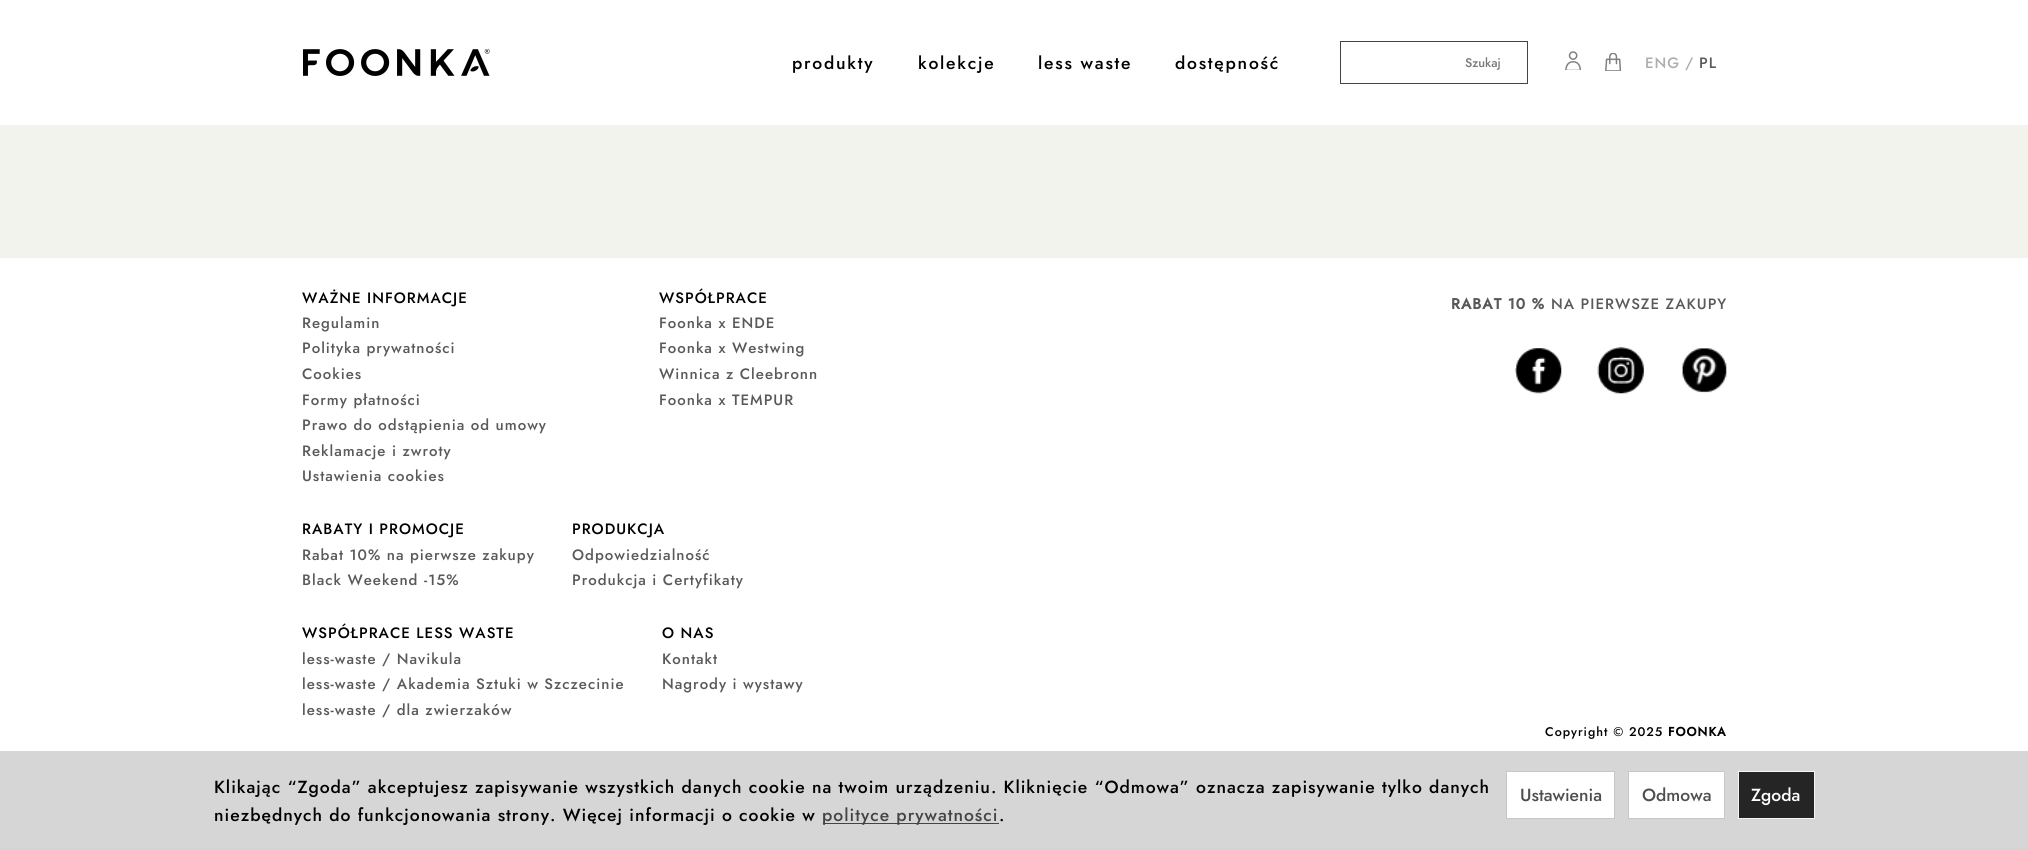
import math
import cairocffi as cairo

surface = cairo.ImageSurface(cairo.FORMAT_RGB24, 2028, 849)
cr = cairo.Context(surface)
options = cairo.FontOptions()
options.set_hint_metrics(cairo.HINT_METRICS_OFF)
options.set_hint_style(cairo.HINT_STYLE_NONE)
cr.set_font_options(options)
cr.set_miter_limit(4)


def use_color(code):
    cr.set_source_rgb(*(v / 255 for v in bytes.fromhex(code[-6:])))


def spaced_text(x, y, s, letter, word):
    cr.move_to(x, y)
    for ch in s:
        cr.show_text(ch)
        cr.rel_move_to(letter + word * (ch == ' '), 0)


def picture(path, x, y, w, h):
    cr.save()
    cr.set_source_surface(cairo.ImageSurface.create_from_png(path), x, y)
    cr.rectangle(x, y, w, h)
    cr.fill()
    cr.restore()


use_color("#f3f3ee")
cr.paint()
use_color("#ffffff")
cr.rectangle(0, 0, 2028, 125)
cr.fill()
picture("img1.png", 303, 49, 187, 27)
cr.select_font_face("Jost Medium")
cr.set_font_size(17.5)
use_color("#000000")
spaced_text(792, 69, "produkty", 1.75, 0)
spaced_text(918, 69, "kolekcje", 1.75, 0)
spaced_text(1038, 69, "less waste", 1.75, 0)
spaced_text(1175, 69, "dostępność", 1.75, 0)
cr.rectangle(1340.5, 41.5, 187, 42)
use_color("#444444")
cr.set_line_width(1)
cr.stroke()
cr.set_font_size(12.5)
use_color("#777777")
cr.move_to(1465, 67)
cr.show_text("Szukaj")
picture("img2.png", 1565, 51, 16, 19)
picture("img3.png", 1605, 53, 16, 18)
cr.set_font_size(15)
use_color("#aeaeae")
spaced_text(1645, 68, "ENG", 1, 0)
spaced_text(1685, 68, "/", 1, 0)
use_color("#58595b")
spaced_text(1699, 68, "PL", 1, 0)
use_color("#ffffff")
cr.rectangle(0, 258, 2028, 493)
cr.fill()
use_color("#000000")
spaced_text(302, 303, "WAŻNE INFORMACJE", 1, 0)
use_color("#58595b")
spaced_text(302, 328, "Regulamin", 1, 0)
spaced_text(302, 353, "Polityka prywatności", 1, 0)
spaced_text(302, 379, "Cookies", 1, 0)
spaced_text(302, 405, "Formy płatności", 1, 0)
spaced_text(302, 430, "Prawo do odstąpienia od umowy", 1, 0)
spaced_text(302, 456, "Reklamacje i zwroty", 1, 0)
spaced_text(302, 481, "Ustawienia cookies", 1, 0)
use_color("#000000")
spaced_text(659, 303, "WSPÓŁPRACE", 1, 0)
use_color("#58595b")
spaced_text(659, 328, "Foonka x ENDE", 1, 0)
spaced_text(659, 353, "Foonka x Westwing", 1, 0)
spaced_text(659, 379, "Winnica z Cleebronn", 1, 0)
spaced_text(659, 405, "Foonka x TEMPUR", 1, 0)
use_color("#000000")
spaced_text(302, 534, "RABATY I PROMOCJE", 1, 0)
use_color("#58595b")
spaced_text(302, 560, "Rabat 10% na pierwsze zakupy", 1, 0)
spaced_text(302, 585, "Black Weekend -15%", 1, 0)
use_color("#000000")
spaced_text(572, 534, "PRODUKCJA", 1, 0)
use_color("#58595b")
spaced_text(572, 560, "Odpowiedzialność", 1, 0)
spaced_text(572, 585, "Produkcja i Certyfikaty", 1, 0)
use_color("#000000")
spaced_text(302, 638, "WSPÓŁPRACE LESS WASTE", 1, 0)
use_color("#58595b")
spaced_text(302, 664, "less-waste / Navikula", 1, 0)
spaced_text(302, 689, "less-waste / Akademia Sztuki w Szczecinie", 1, 0)
spaced_text(302, 715, "less-waste / dla zwierzaków", 1, 0)
use_color("#000000")
spaced_text(662, 638, "O NAS", 1, 0)
use_color("#58595b")
spaced_text(662, 664, "Kontakt", 1, 0)
spaced_text(662, 689, "Nagrody i wystawy", 1, 0)
cr.select_font_face("Jost", cairo.FONT_SLANT_NORMAL, cairo.FONT_WEIGHT_BOLD)
spaced_text(1451, 309, "RABAT 10 %", 1, 0)
cr.select_font_face("Jost Medium")
spaced_text(1551, 309, "NA PIERWSZE ZAKUPY", 1, 0)
picture("img4.png", 1515, 348, 47, 46)
picture("img5.png", 1597, 347, 47, 47)
picture("img6.png", 1682, 348, 45, 45)
cr.set_font_size(12.5)
use_color("#000000")
spaced_text(1545, 736, "Copyright © 2025", 1, 0)
cr.select_font_face("Jost", cairo.FONT_SLANT_NORMAL, cairo.FONT_WEIGHT_BOLD)
spaced_text(1668, 736, "FOONKA", 1, 0)
use_color("#d6d6d6")
cr.rectangle(0, 751, 2028, 98)
cr.fill()
cr.select_font_face("Jost Medium")
cr.set_font_size(17.5)
use_color("#000000")
spaced_text(214, 793, "Klikając “Zgoda” akceptujesz zapisywanie wszystkich danych cookie na twoim urządzeniu. Kliknięcie “Odmowa” oznacza zapisywanie tylko danych", 1, 0)
spaced_text(214, 821, "niezbędnych do funkcjonowania strony. Więcej informacji o cookie w", 1, 0)
use_color("#444444")
cr.rectangle(823, 823, 176, 1)
cr.fill()
spaced_text(822, 821, "polityce prywatności", 1, 0)
use_color("#000000")
spaced_text(999, 821, ".", 1, 0)
use_color("#ffffff")
cr.rectangle(1506.5, 771.5, 108, 47)
cr.fill_preserve()
use_color("#c7c7c7")
cr.stroke()
use_color("#4f4f4f")
cr.move_to(1520, 801)
cr.show_text("Ustawienia")
use_color("#ffffff")
cr.rectangle(1628.5, 771.5, 96, 47)
cr.fill_preserve()
use_color("#c7c7c7")
cr.stroke()
use_color("#4f4f4f")
cr.move_to(1642, 801)
cr.show_text("Odmowa")
use_color("#252525")
cr.rectangle(1738.5, 771.5, 76, 47)
cr.fill_preserve()
use_color("#f5f5f5")
cr.stroke()
use_color("#ffffff")
cr.move_to(1751, 801)
cr.show_text("Zgoda")
surface.write_to_png("result.png")
